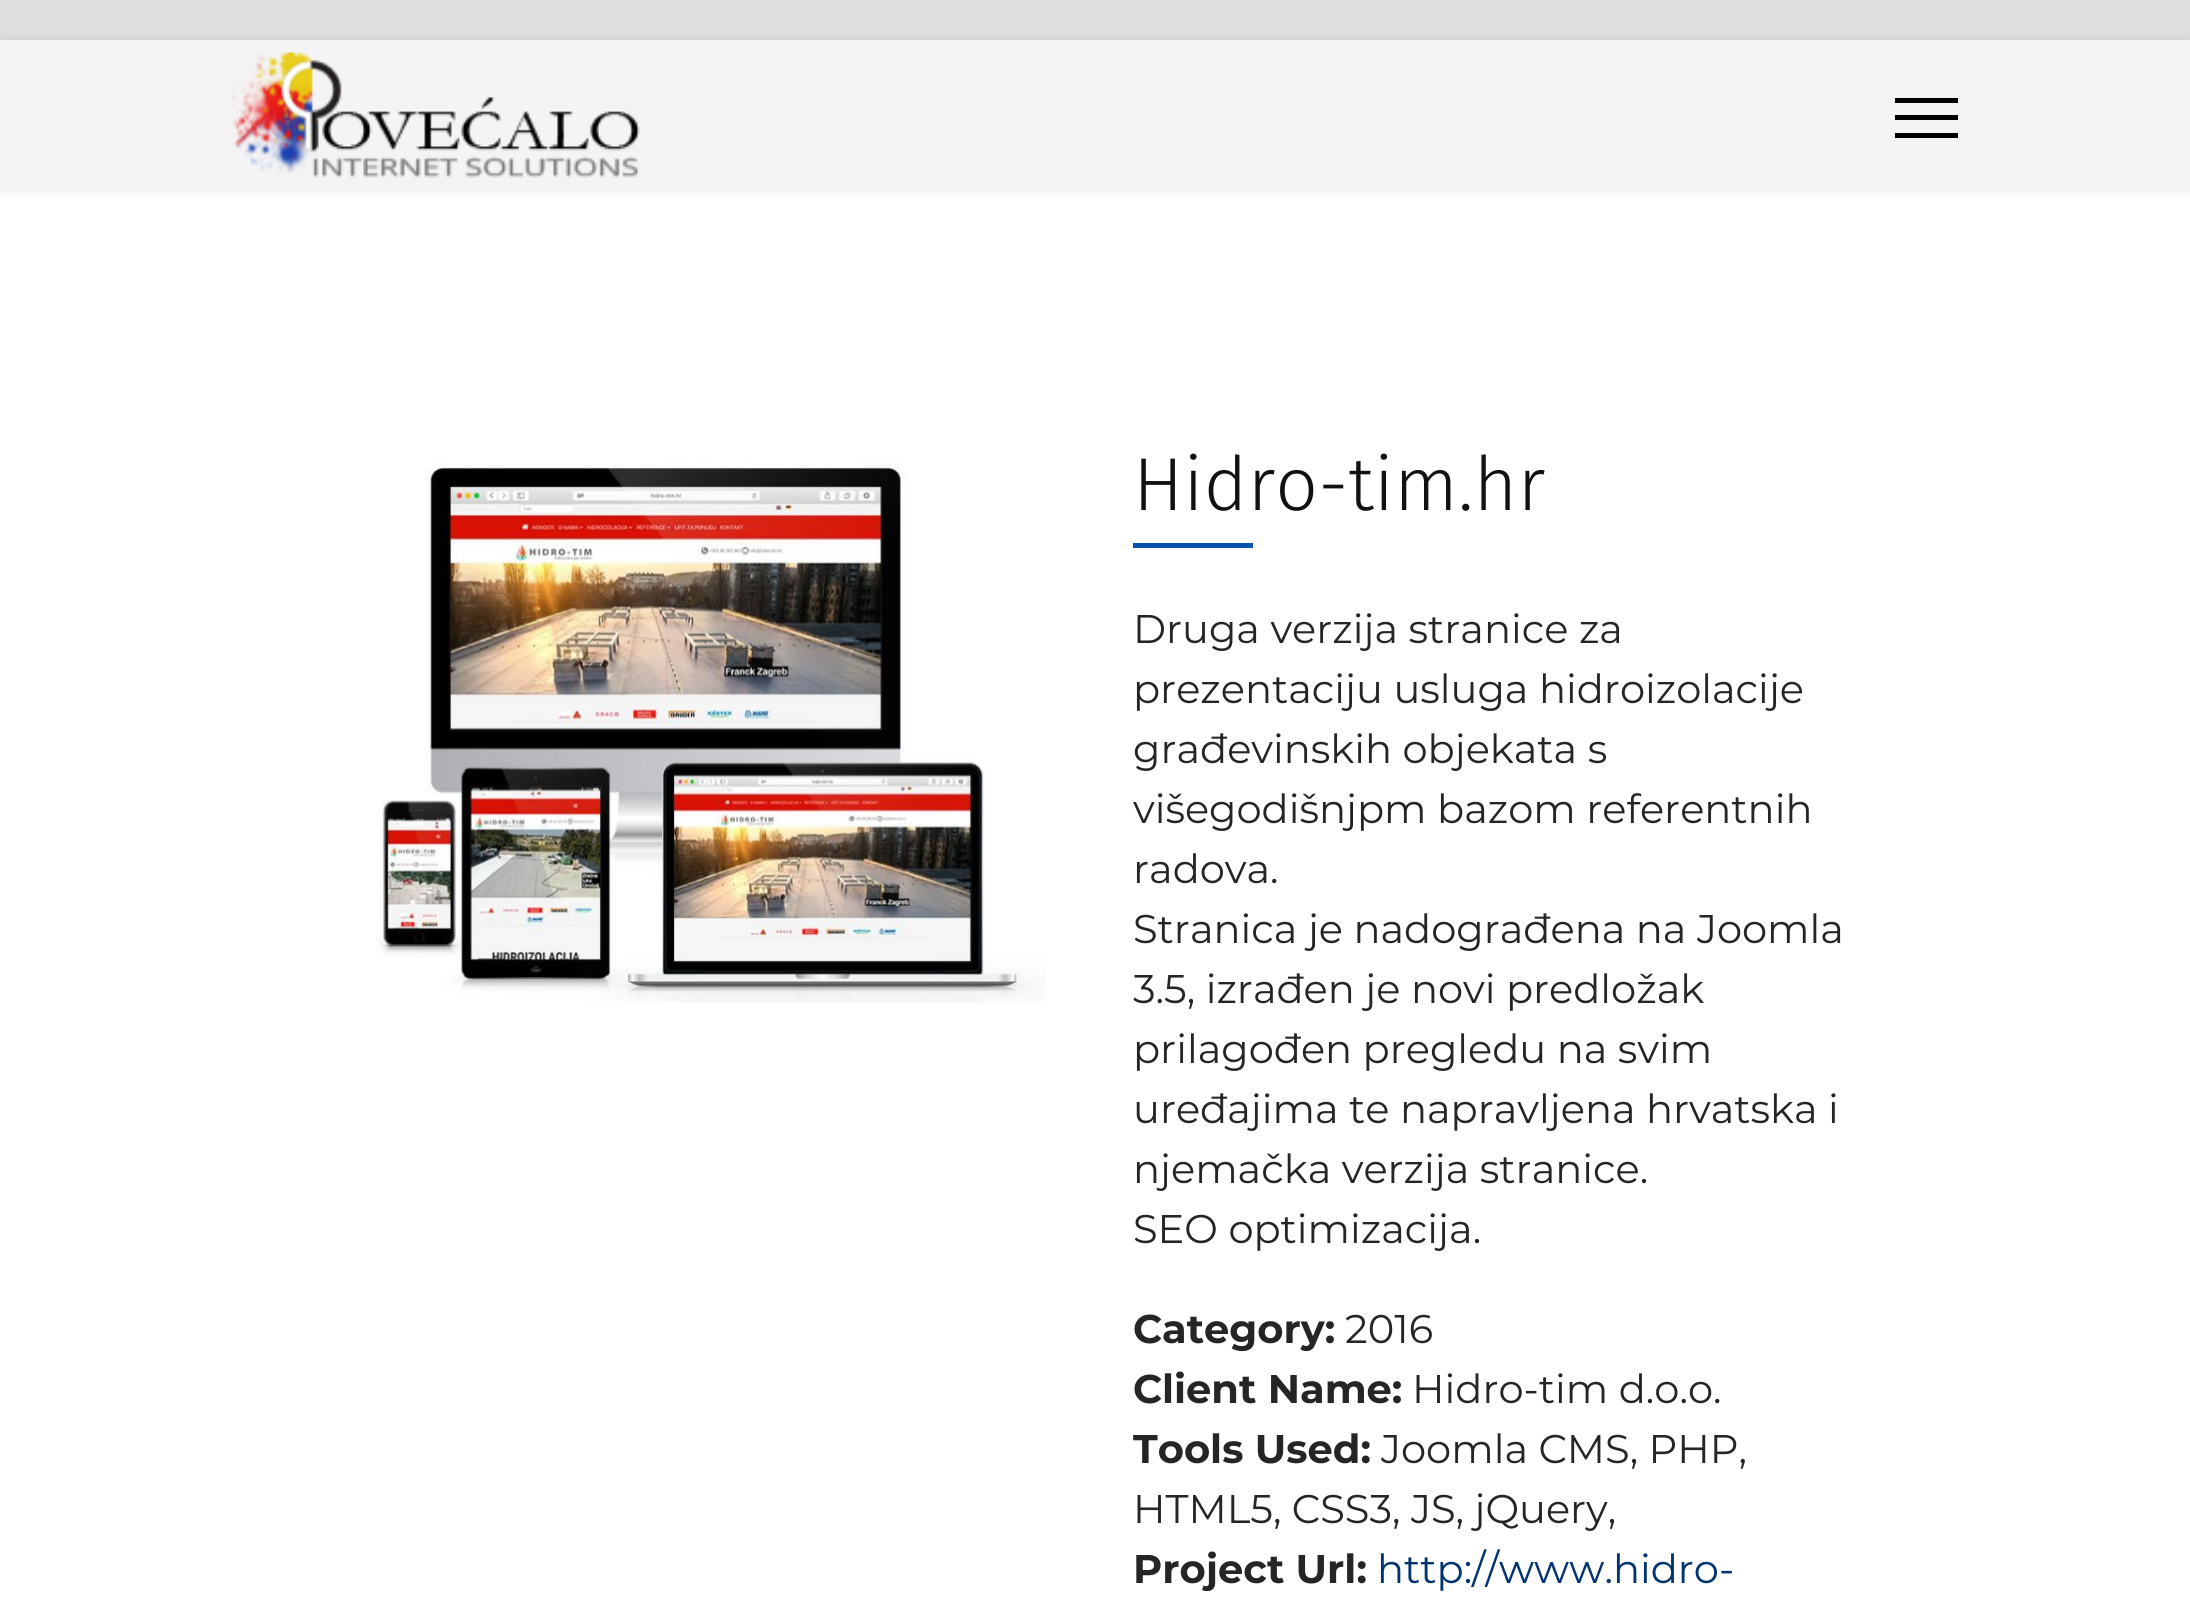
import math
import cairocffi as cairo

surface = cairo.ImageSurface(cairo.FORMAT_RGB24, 2190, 1607)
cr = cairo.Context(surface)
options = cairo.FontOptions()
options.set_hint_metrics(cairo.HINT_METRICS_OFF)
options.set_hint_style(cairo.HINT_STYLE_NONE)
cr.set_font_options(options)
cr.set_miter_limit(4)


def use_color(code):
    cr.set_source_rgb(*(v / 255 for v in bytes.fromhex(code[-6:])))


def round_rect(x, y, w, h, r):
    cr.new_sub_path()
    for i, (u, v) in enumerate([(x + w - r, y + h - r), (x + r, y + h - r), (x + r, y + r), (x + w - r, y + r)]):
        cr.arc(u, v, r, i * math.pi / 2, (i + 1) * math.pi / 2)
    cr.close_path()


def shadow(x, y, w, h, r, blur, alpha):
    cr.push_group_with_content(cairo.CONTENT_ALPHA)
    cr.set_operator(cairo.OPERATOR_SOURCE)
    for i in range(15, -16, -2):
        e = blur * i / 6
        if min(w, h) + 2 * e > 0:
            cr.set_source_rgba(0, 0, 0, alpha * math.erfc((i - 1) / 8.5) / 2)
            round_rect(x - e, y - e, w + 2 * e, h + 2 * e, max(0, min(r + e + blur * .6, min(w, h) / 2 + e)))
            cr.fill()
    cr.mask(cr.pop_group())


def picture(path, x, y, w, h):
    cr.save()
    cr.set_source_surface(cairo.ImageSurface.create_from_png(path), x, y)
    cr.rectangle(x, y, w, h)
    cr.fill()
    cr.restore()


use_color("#ffffff")
cr.paint()
use_color("#dedede")
cr.rectangle(0, 0, 2190, 40)
cr.fill()
use_color("#000000")
shadow(0, 40, 2190, 150, 0, 5, 0.1)
use_color("#f4f4f4")
cr.rectangle(0, 40, 2190, 150)
cr.fill()
picture("img1.png", 232, 52, 408, 126)
use_color("#000000")
cr.rectangle(1895, 98, 63, 5)
cr.fill()
cr.rectangle(1895, 115, 63, 5)
cr.fill()
cr.rectangle(1895, 133, 63, 5)
cr.fill()
picture("img2.png", 376, 462, 670, 541)
cr.select_font_face("Fira Sans Light")
cr.set_font_size(75)
use_color("#111111")
cr.move_to(1133, 510)
cr.show_text("Hidro-tim.hr")
use_color("#0654ad")
cr.rectangle(1133, 543, 120, 5)
cr.fill()
cr.select_font_face("Montserrat")
cr.set_font_size(40)
use_color("#252525")
cr.move_to(1133, 643)
cr.show_text("Druga verzija stranice za")
cr.move_to(1133, 703)
cr.show_text("prezentaciju usluga hidroizolacije")
cr.move_to(1133, 763)
cr.show_text("građevinskih objekata s")
cr.move_to(1133, 823)
cr.show_text("višegodišnjpm bazom referentnih")
cr.move_to(1133, 883)
cr.show_text("radova.")
cr.move_to(1133, 943)
cr.show_text("Stranica je nadograđena na Joomla")
cr.move_to(1133, 1003)
cr.show_text("3.5, izrađen je novi predložak")
cr.move_to(1133, 1063)
cr.show_text("prilagođen pregledu na svim")
cr.move_to(1133, 1123)
cr.show_text("uređajima te napravljena hrvatska i")
cr.move_to(1133, 1183)
cr.show_text("njemačka verzija stranice.")
cr.move_to(1133, 1243)
cr.show_text("SEO optimizacija.")
cr.select_font_face("Montserrat", cairo.FONT_SLANT_NORMAL, cairo.FONT_WEIGHT_BOLD)
cr.move_to(1133, 1343)
cr.show_text("Category:")
cr.select_font_face("Montserrat")
cr.move_to(1345, 1343)
cr.show_text("2016")
cr.select_font_face("Montserrat", cairo.FONT_SLANT_NORMAL, cairo.FONT_WEIGHT_BOLD)
cr.move_to(1133, 1403)
cr.show_text("Client Name:")
cr.select_font_face("Montserrat")
cr.move_to(1412, 1403)
cr.show_text("Hidro-tim d.o.o.")
cr.select_font_face("Montserrat", cairo.FONT_SLANT_NORMAL, cairo.FONT_WEIGHT_BOLD)
cr.move_to(1133, 1463)
cr.show_text("Tools Used:")
cr.select_font_face("Montserrat")
cr.move_to(1381, 1463)
cr.show_text("Joomla CMS, PHP,")
cr.move_to(1133, 1523)
cr.show_text("HTML5, CSS3, JS, jQuery,")
cr.select_font_face("Montserrat", cairo.FONT_SLANT_NORMAL, cairo.FONT_WEIGHT_BOLD)
cr.move_to(1133, 1583)
cr.show_text("Project Url:")
cr.select_font_face("Montserrat")
use_color("#003471")
cr.move_to(1377, 1583)
cr.show_text("http://www.hidro-")
surface.write_to_png("result.png")
